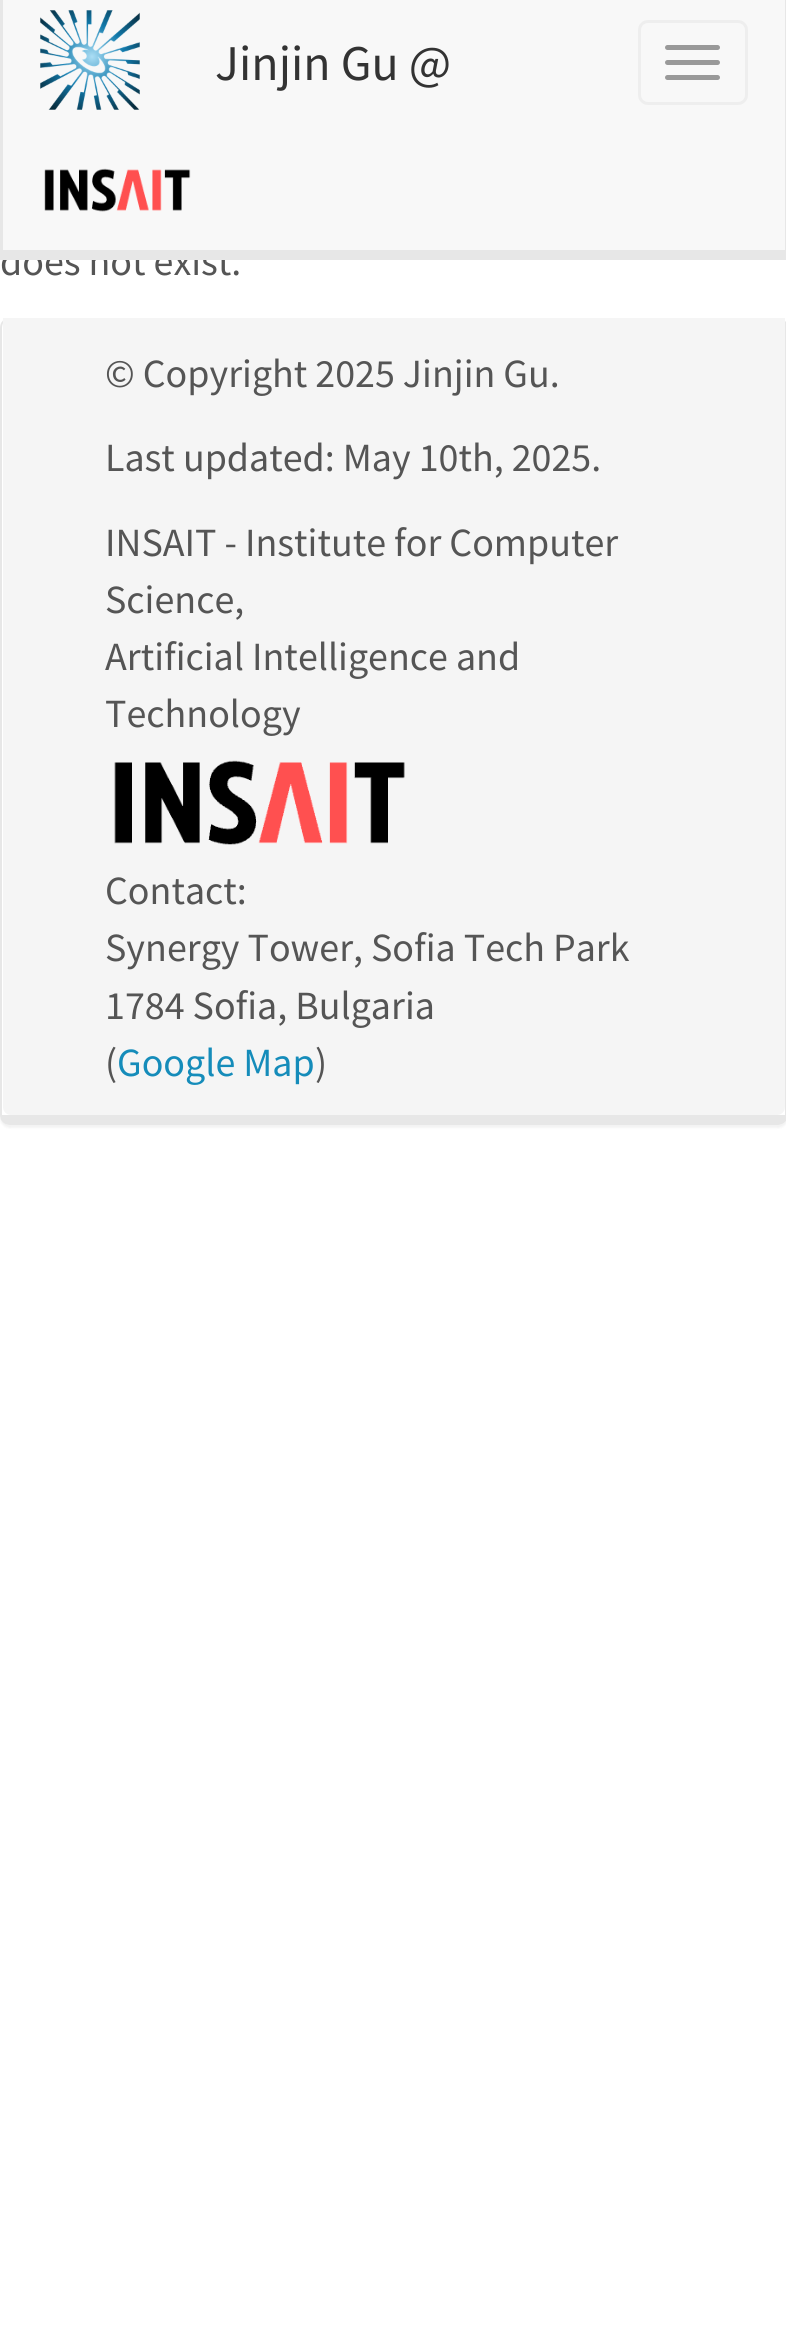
import math
import cairocffi as cairo

surface = cairo.ImageSurface(cairo.FORMAT_RGB24, 786, 2348)
cr = cairo.Context(surface)
options = cairo.FontOptions()
options.set_hint_metrics(cairo.HINT_METRICS_OFF)
options.set_hint_style(cairo.HINT_STYLE_NONE)
cr.set_font_options(options)
cr.set_miter_limit(4)


def use_color(code):
    cr.set_source_rgb(*(v / 255 for v in bytes.fromhex(code[-6:])))


def round_rect(x, y, w, h, r):
    cr.new_sub_path()
    for i, (u, v) in enumerate([(x + w - r, y + h - r), (x + r, y + h - r), (x + r, y + r), (x + w - r, y + r)]):
        cr.arc(u, v, r, i * math.pi / 2, (i + 1) * math.pi / 2)
    cr.close_path()


def shadow(x, y, w, h, r, blur, alpha):
    cr.push_group_with_content(cairo.CONTENT_ALPHA)
    cr.set_operator(cairo.OPERATOR_SOURCE)
    for i in range(15, -16, -2):
        e = blur * i / 6
        if min(w, h) + 2 * e > 0:
            cr.set_source_rgba(0, 0, 0, alpha * math.erfc((i - 1) / 8.5) / 2)
            round_rect(x - e, y - e, w + 2 * e, h + 2 * e, max(0, min(r + e + blur * .6, min(w, h) / 2 + e)))
            cr.fill()
    cr.mask(cr.pop_group())


def picture(path, x, y, w, h):
    cr.save()
    cr.set_source_surface(cairo.ImageSurface.create_from_png(path), x, y)
    cr.rectangle(x, y, w, h)
    cr.fill()
    cr.restore()


use_color("#ffffff")
cr.paint()
cr.select_font_face("Source Sans Pro")
cr.set_font_size(40)
use_color("#555555")
cr.move_to(0, 275)
cr.show_text("does not exist.")
use_color("#f8f8f8")
cr.rectangle(3, 0, 782, 250)
cr.fill()
use_color("#e7e7e7")
cr.rectangle(785, 0, 1, 250)
cr.fill()
cr.rectangle(3, 250, 783, 10)
cr.fill()
cr.rectangle(0, 0, 3, 260)
cr.fill()
picture("img1.png", 40, 10, 100, 100)
cr.set_font_size(50)
use_color("#333333")
cr.move_to(215, 80)
cr.show_text("Jinjin Gu @")
round_rect(639.5, 21.5, 107, 82, 8.5)
use_color("#eeeeee")
cr.set_line_width(3)
cr.stroke()
use_color("#999999")
round_rect(665, 45, 55, 5, 2.5)
cr.fill()
round_rect(665, 60, 55, 5, 2.5)
cr.fill()
round_rect(665, 75, 55, 5, 2.5)
cr.fill()
picture("img2.png", 44, 168, 147, 44)
cr.save()
cr.set_fill_rule(cairo.FILL_RULE_EVEN_ODD)
cr.new_path()
cr.move_to(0, 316)
cr.line_to(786, 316)
cr.line_to(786, 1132)
cr.line_to(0, 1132)
cr.close_path()
cr.move_to(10, 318)
cr.line_to(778, 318)
cr.curve_to(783.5, 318, 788, 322.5, 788, 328)
cr.line_to(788, 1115)
cr.curve_to(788, 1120.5, 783.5, 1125, 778, 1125)
cr.line_to(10, 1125)
cr.curve_to(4.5, 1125, 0, 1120.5, 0, 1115)
cr.line_to(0, 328)
cr.curve_to(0, 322.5, 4.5, 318, 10, 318)
cr.close_path()
cr.clip()
use_color("#000000")
shadow(0, 320, 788, 808, 10, 1, 0.05)
cr.restore()
use_color("#e7e7e7")
cr.set_fill_rule(cairo.FILL_RULE_EVEN_ODD)
cr.new_path()
cr.move_to(10, 318)
cr.line_to(778, 318)
cr.curve_to(783, 318, 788, 322, 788, 328)
cr.line_to(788, 1115)
cr.curve_to(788, 1121, 783, 1125, 778, 1125)
cr.line_to(10, 1125)
cr.curve_to(4, 1125, 0, 1121, 0, 1115)
cr.line_to(0, 328)
cr.curve_to(0, 322, 4, 318, 10, 318)
cr.close_path()
cr.move_to(10, 318)
cr.line_to(778, 318)
cr.curve_to(782, 318, 785, 322, 785, 328)
cr.line_to(785, 1115)
cr.line_to(2, 1115)
cr.line_to(2, 328)
cr.curve_to(2, 322, 6, 318, 10, 318)
cr.close_path()
cr.fill()
use_color("#f5f5f5")
cr.new_path()
cr.move_to(3, 318)
cr.line_to(785, 318)
cr.line_to(785, 1107)
cr.curve_to(785, 1111.5, 781.5, 1115, 777, 1115)
cr.line_to(11, 1115)
cr.curve_to(6.5, 1115, 3, 1111.5, 3, 1107)
cr.close_path()
cr.fill()
cr.set_font_size(40)
use_color("#555555")
cr.move_to(105, 387)
cr.show_text("© Copyright 2025 Jinjin Gu.")
cr.move_to(105, 471)
cr.show_text("Last updated: May 10th, 2025.")
cr.move_to(105, 556)
cr.show_text("INSAIT - Institute for Computer")
cr.move_to(105, 613)
cr.show_text("Science,")
cr.move_to(105, 670)
cr.show_text("Artificial Intelligence and")
cr.move_to(105, 727)
cr.show_text("Technology")
picture("img3.png", 114, 760, 291, 85)
cr.move_to(105, 904)
cr.show_text("Contact:")
cr.move_to(105, 961)
cr.show_text("Synergy Tower, Sofia Tech Park")
cr.move_to(105, 1019)
cr.show_text("1784 Sofia, Bulgaria")
cr.move_to(105, 1076)
cr.show_text("(")
use_color("#158cba")
cr.move_to(117, 1076)
cr.show_text("Google Map")
use_color("#555555")
cr.move_to(315, 1076)
cr.show_text(")")
surface.write_to_png("result.png")
